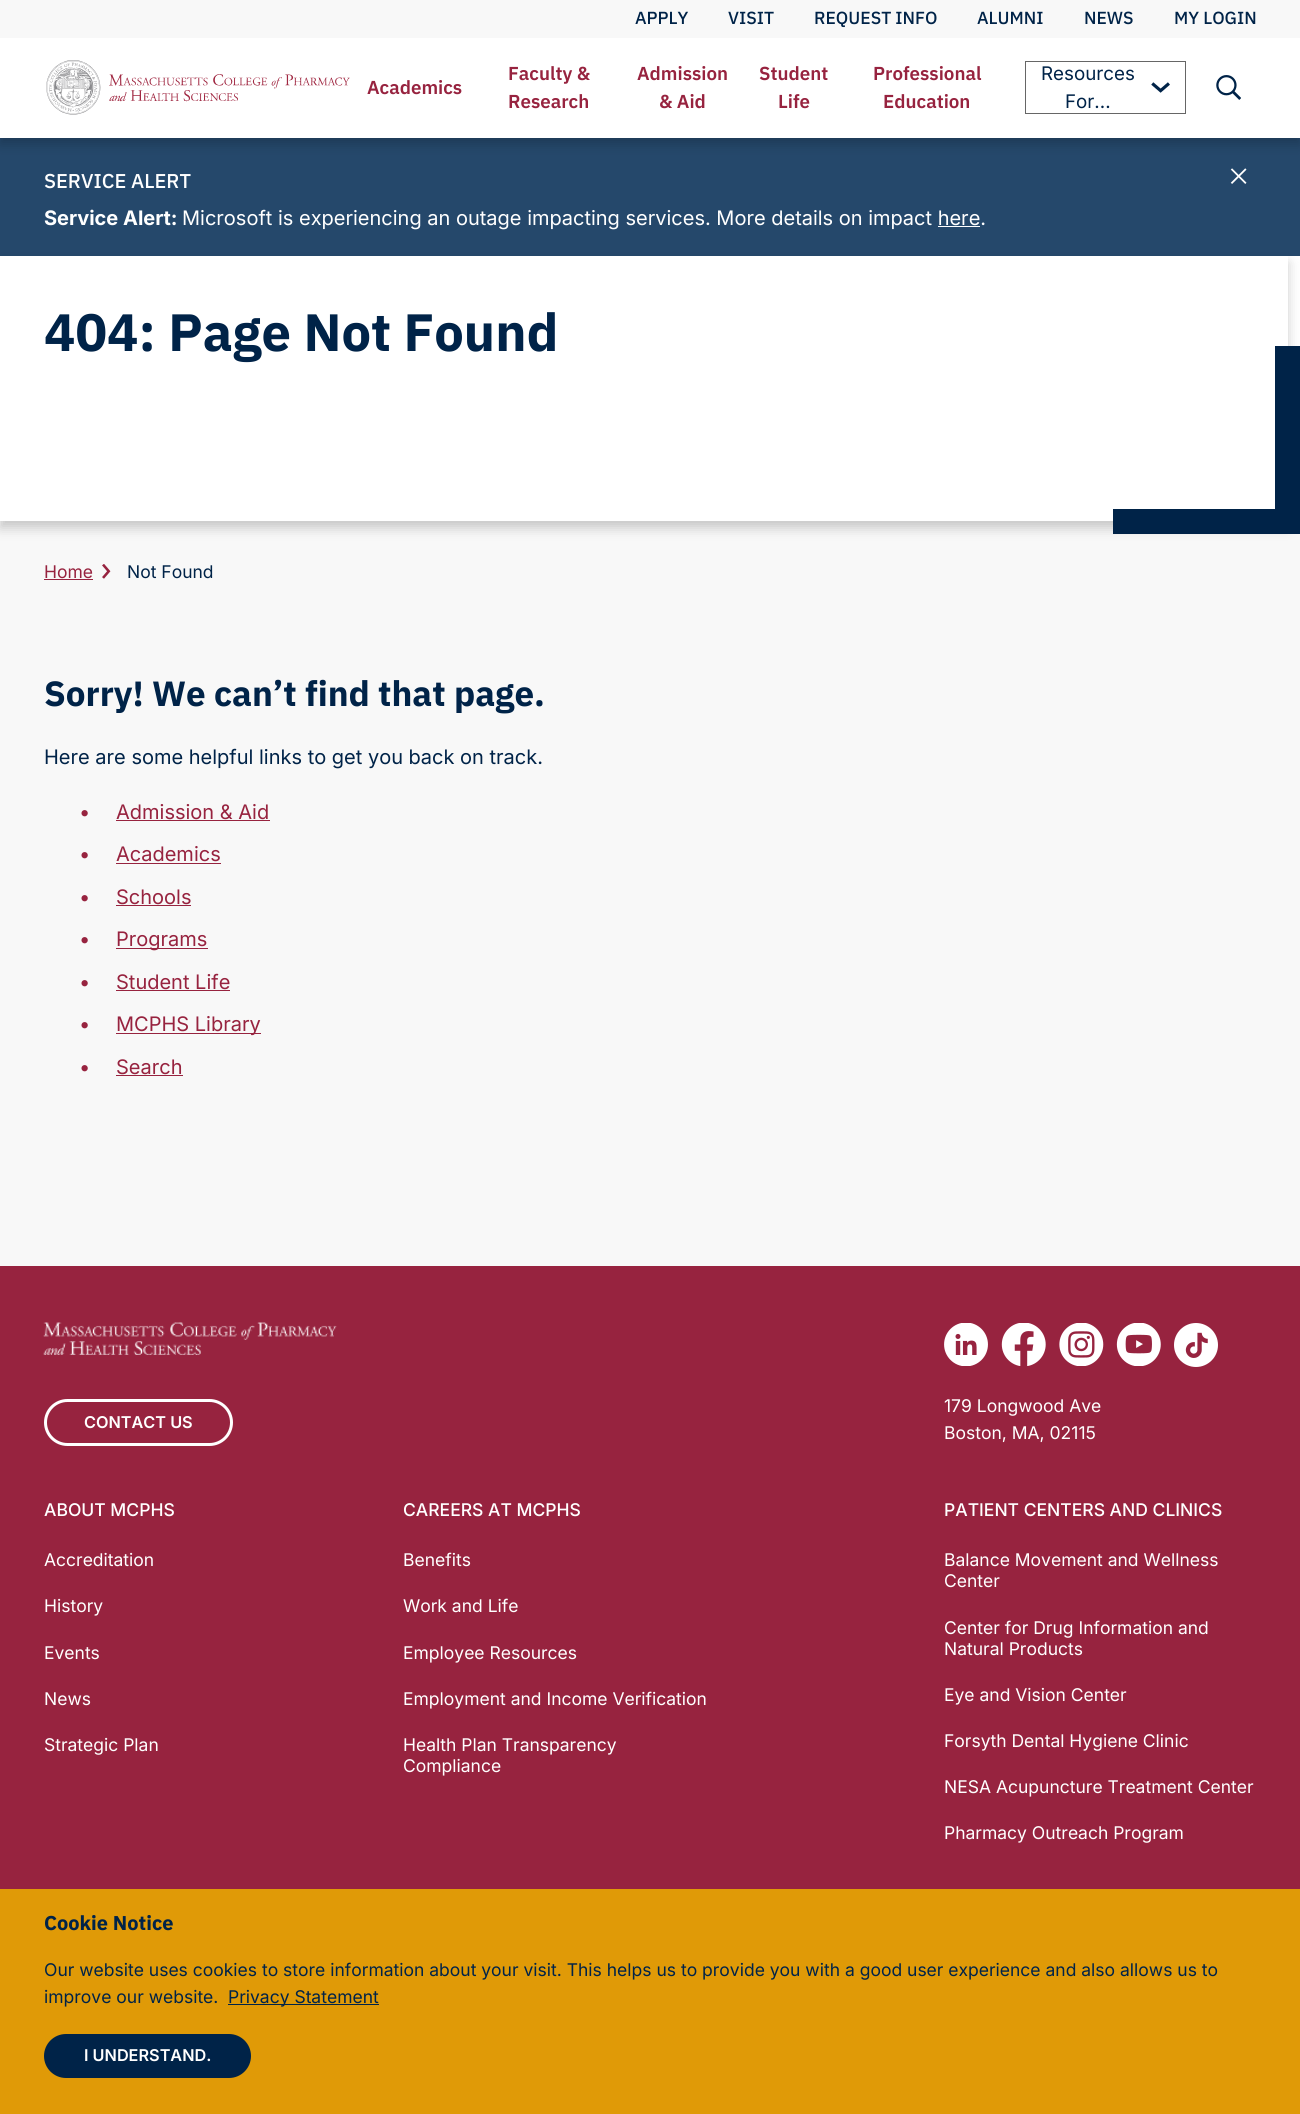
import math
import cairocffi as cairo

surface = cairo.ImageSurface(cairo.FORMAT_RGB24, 1300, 2114)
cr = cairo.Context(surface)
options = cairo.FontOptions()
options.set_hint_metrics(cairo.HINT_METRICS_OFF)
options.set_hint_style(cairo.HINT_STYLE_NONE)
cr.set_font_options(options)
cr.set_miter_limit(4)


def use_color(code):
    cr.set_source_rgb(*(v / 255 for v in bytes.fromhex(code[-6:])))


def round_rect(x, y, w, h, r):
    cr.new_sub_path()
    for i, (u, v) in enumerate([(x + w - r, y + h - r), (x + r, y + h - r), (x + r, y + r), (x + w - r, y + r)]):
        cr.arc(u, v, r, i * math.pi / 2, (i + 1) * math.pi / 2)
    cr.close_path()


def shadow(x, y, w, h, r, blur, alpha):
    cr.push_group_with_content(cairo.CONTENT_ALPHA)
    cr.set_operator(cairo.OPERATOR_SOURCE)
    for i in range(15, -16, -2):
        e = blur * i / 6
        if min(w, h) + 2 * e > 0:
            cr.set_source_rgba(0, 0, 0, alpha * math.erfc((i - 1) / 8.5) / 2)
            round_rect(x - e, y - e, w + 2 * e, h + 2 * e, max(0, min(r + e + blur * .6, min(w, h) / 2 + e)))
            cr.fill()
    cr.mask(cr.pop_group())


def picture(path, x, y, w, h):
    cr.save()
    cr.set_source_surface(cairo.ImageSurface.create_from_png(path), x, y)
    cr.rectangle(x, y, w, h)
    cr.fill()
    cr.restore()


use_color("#f8f8f8")
cr.paint()
use_color("#25486b")
cr.rectangle(0, 138, 1300, 118)
cr.fill()
use_color("#000000")
shadow(0, 6, 1300, 138, 0, 6, 0.2)
use_color("#ffffff")
cr.rectangle(0, 38, 1300, 100)
cr.fill()
use_color("#f8f8f8")
cr.rectangle(0, 0, 1300, 38)
cr.fill()
cr.select_font_face("IBM Plex Sans Medium")
cr.set_font_size(17.5)
use_color("#002348")
cr.move_to(635, 24)
cr.show_text("APPLY")
cr.move_to(728, 24)
cr.show_text("VISIT")
cr.move_to(814, 24)
cr.show_text("REQUEST INFO")
cr.move_to(977, 24)
cr.show_text("ALUMNI")
cr.move_to(1084, 24)
cr.show_text("NEWS")
cr.move_to(1174, 24)
cr.show_text("MY LOGIN")
picture("img1.png", 46, 60, 304, 55)
cr.select_font_face("IBM Plex Sans SemiBold")
cr.set_font_size(18.75)
use_color("#97233f")
cr.move_to(367, 94)
cr.show_text("Academics")
cr.move_to(508, 80)
cr.show_text("Faculty &")
cr.move_to(508, 108)
cr.show_text("Research")
cr.move_to(637, 80)
cr.show_text("Admission")
cr.move_to(659, 108)
cr.show_text("& Aid")
cr.move_to(759, 80)
cr.show_text("Student")
cr.move_to(778, 108)
cr.show_text("Life")
cr.move_to(873, 80)
cr.show_text("Professional")
cr.move_to(883, 108)
cr.show_text("Education")
cr.rectangle(1025.5, 61.5, 160, 52)
use_color("#666666")
cr.set_line_width(1)
cr.stroke()
cr.select_font_face("Inter")
use_color("#002348")
cr.move_to(1041, 80)
cr.show_text("Resources")
picture("img2.png", 1151, 82, 19, 11)
cr.move_to(1065, 108)
cr.show_text("For...")
picture("img3.png", 1216, 75, 25, 25)
cr.select_font_face("IBM Plex Sans Medium")
cr.set_font_size(20)
use_color("#ffffff")
cr.move_to(44, 188)
cr.show_text("SERVICE ALERT")
picture("img4.png", 1230, 168, 17, 16)
cr.select_font_face("Inter", cairo.FONT_SLANT_NORMAL, cairo.FONT_WEIGHT_BOLD)
cr.move_to(44, 225)
cr.show_text("Service Alert:")
cr.select_font_face("Inter")
cr.move_to(182, 225)
cr.show_text("Microsoft is experiencing an outage impacting services. More details on impact here.")
cr.rectangle(938, 226, 42, 1)
cr.fill()
cr.rectangle(1288, 256, 12, 90)
cr.fill()
use_color("#000000")
shadow(0, 263, 1288, 265, 0, 6, 0.2)
use_color("#ffffff")
cr.rectangle(0, 256, 1288, 265)
cr.fill()
cr.select_font_face("IBM Plex Sans", cairo.FONT_SLANT_NORMAL, cairo.FONT_WEIGHT_BOLD)
cr.set_font_size(52.5)
use_color("#002348")
cr.move_to(44, 351)
cr.show_text("404: Page Not Found")
cr.rectangle(1275, 346, 25, 163)
cr.fill()
cr.rectangle(1113, 509, 187, 25)
cr.fill()
cr.select_font_face("Inter")
cr.set_font_size(17.5)
use_color("#97233f")
cr.move_to(44, 578)
cr.show_text("Home")
cr.rectangle(44, 579, 49, 1)
cr.fill()
picture("img5.png", 102, 564, 9, 15)
use_color("#002348")
cr.move_to(127, 578)
cr.show_text("Not Found")
cr.select_font_face("IBM Plex Sans", cairo.FONT_SLANT_NORMAL, cairo.FONT_WEIGHT_BOLD)
cr.set_font_size(35)
cr.move_to(44, 706)
cr.show_text("Sorry! We can’t find that page.")
cr.select_font_face("Inter")
cr.set_font_size(20)
cr.move_to(44, 764)
cr.show_text("Here are some helpful links to get you back on track.")
use_color("#97233f")
cr.move_to(79, 819)
cr.show_text("•")
cr.move_to(116, 819)
cr.show_text("Admission & Aid")
cr.rectangle(116, 820, 154, 1)
cr.fill()
cr.move_to(79, 861)
cr.show_text("•")
cr.move_to(116, 861)
cr.show_text("Academics")
cr.rectangle(116, 863, 105, 1)
cr.fill()
cr.move_to(79, 904)
cr.show_text("•")
cr.move_to(116, 904)
cr.show_text("Schools")
cr.rectangle(116, 905, 75, 1)
cr.fill()
cr.move_to(79, 946)
cr.show_text("•")
cr.rectangle(116, 948, 92, 1)
cr.fill()
cr.move_to(116, 946)
cr.show_text("Programs")
cr.move_to(79, 989)
cr.show_text("•")
cr.move_to(116, 989)
cr.show_text("Student Life")
cr.rectangle(116, 990, 114, 1)
cr.fill()
cr.move_to(79, 1031)
cr.show_text("•")
cr.rectangle(116, 1033, 145, 1)
cr.fill()
cr.move_to(116, 1031)
cr.show_text("MCPHS Library")
cr.move_to(79, 1074)
cr.show_text("•")
cr.move_to(116, 1074)
cr.show_text("Search")
cr.rectangle(116, 1075, 67, 1)
cr.fill()
cr.rectangle(0, 1266, 1300, 623)
cr.fill()
picture("img6.png", 43, 1322, 294, 33)
round_rect(45.5, 1400.5, 186, 44, 22)
use_color("#ffffff")
cr.set_line_width(3)
cr.stroke()
cr.select_font_face("Inter SemiBold")
cr.set_font_size(16.25)
cr.move_to(84, 1428)
cr.show_text("CONTACT US")
picture("img7.png", 944, 1323, 44, 43)
picture("img8.png", 1001, 1323, 45, 43)
picture("img9.png", 1059, 1323, 45, 43)
picture("img10.png", 1116, 1323, 45, 43)
picture("img11.png", 1174, 1323, 44, 44)
cr.select_font_face("Inter")
cr.set_font_size(17.5)
cr.move_to(944, 1412)
cr.show_text("179 Longwood Ave")
cr.move_to(944, 1439)
cr.show_text("Boston, MA, 02115")
cr.select_font_face("Inter Medium")
cr.move_to(44, 1516)
cr.show_text("ABOUT MCPHS")
cr.select_font_face("Inter")
cr.move_to(44, 1566)
cr.show_text("Accreditation")
cr.move_to(44, 1612)
cr.show_text("History")
cr.move_to(44, 1659)
cr.show_text("Events")
cr.move_to(44, 1705)
cr.show_text("News")
cr.move_to(44, 1751)
cr.show_text("Strategic Plan")
cr.select_font_face("Inter Medium")
cr.move_to(403, 1516)
cr.show_text("CAREERS AT MCPHS")
cr.select_font_face("Inter")
cr.move_to(403, 1566)
cr.show_text("Benefits")
cr.move_to(403, 1612)
cr.show_text("Work and Life")
cr.move_to(403, 1659)
cr.show_text("Employee Resources")
cr.move_to(403, 1705)
cr.show_text("Employment and Income Verification")
cr.move_to(403, 1751)
cr.show_text("Health Plan Transparency")
cr.move_to(403, 1772)
cr.show_text("Compliance")
cr.select_font_face("Inter Medium")
cr.move_to(944, 1516)
cr.show_text("PATIENT CENTERS AND CLINICS")
cr.select_font_face("Inter")
cr.move_to(944, 1566)
cr.show_text("Balance Movement and Wellness")
cr.move_to(944, 1587)
cr.show_text("Center")
cr.move_to(944, 1634)
cr.show_text("Center for Drug Information and")
cr.move_to(944, 1655)
cr.show_text("Natural Products")
cr.move_to(944, 1701)
cr.show_text("Eye and Vision Center")
cr.move_to(944, 1747)
cr.show_text("Forsyth Dental Hygiene Clinic")
cr.move_to(944, 1793)
cr.show_text("NESA Acupuncture Treatment Center")
cr.move_to(944, 1839)
cr.show_text("Pharmacy Outreach Program")
use_color("#e09a07")
cr.rectangle(0, 1889, 1300, 225)
cr.fill()
cr.select_font_face("IBM Plex Sans", cairo.FONT_SLANT_NORMAL, cairo.FONT_WEIGHT_BOLD)
cr.set_font_size(20)
use_color("#002348")
cr.move_to(44, 1930)
cr.show_text("Cookie Notice")
cr.select_font_face("Inter")
cr.set_font_size(17.5)
cr.move_to(44, 1976)
cr.show_text("Our website uses cookies to store information about your visit. This helps us to provide you with a good user experience and also allows us to")
cr.move_to(44, 2003)
cr.show_text("improve our website.")
cr.rectangle(228, 2004, 151, 1)
cr.fill()
cr.move_to(228, 2003)
cr.show_text("Privacy Statement")
round_rect(45.5, 2035.5, 204, 41, 20.5)
cr.fill_preserve()
cr.stroke()
cr.select_font_face("Inter SemiBold")
cr.set_font_size(16.25)
use_color("#ffffff")
cr.move_to(84, 2061)
cr.show_text("I UNDERSTAND.")
surface.write_to_png("result.png")
